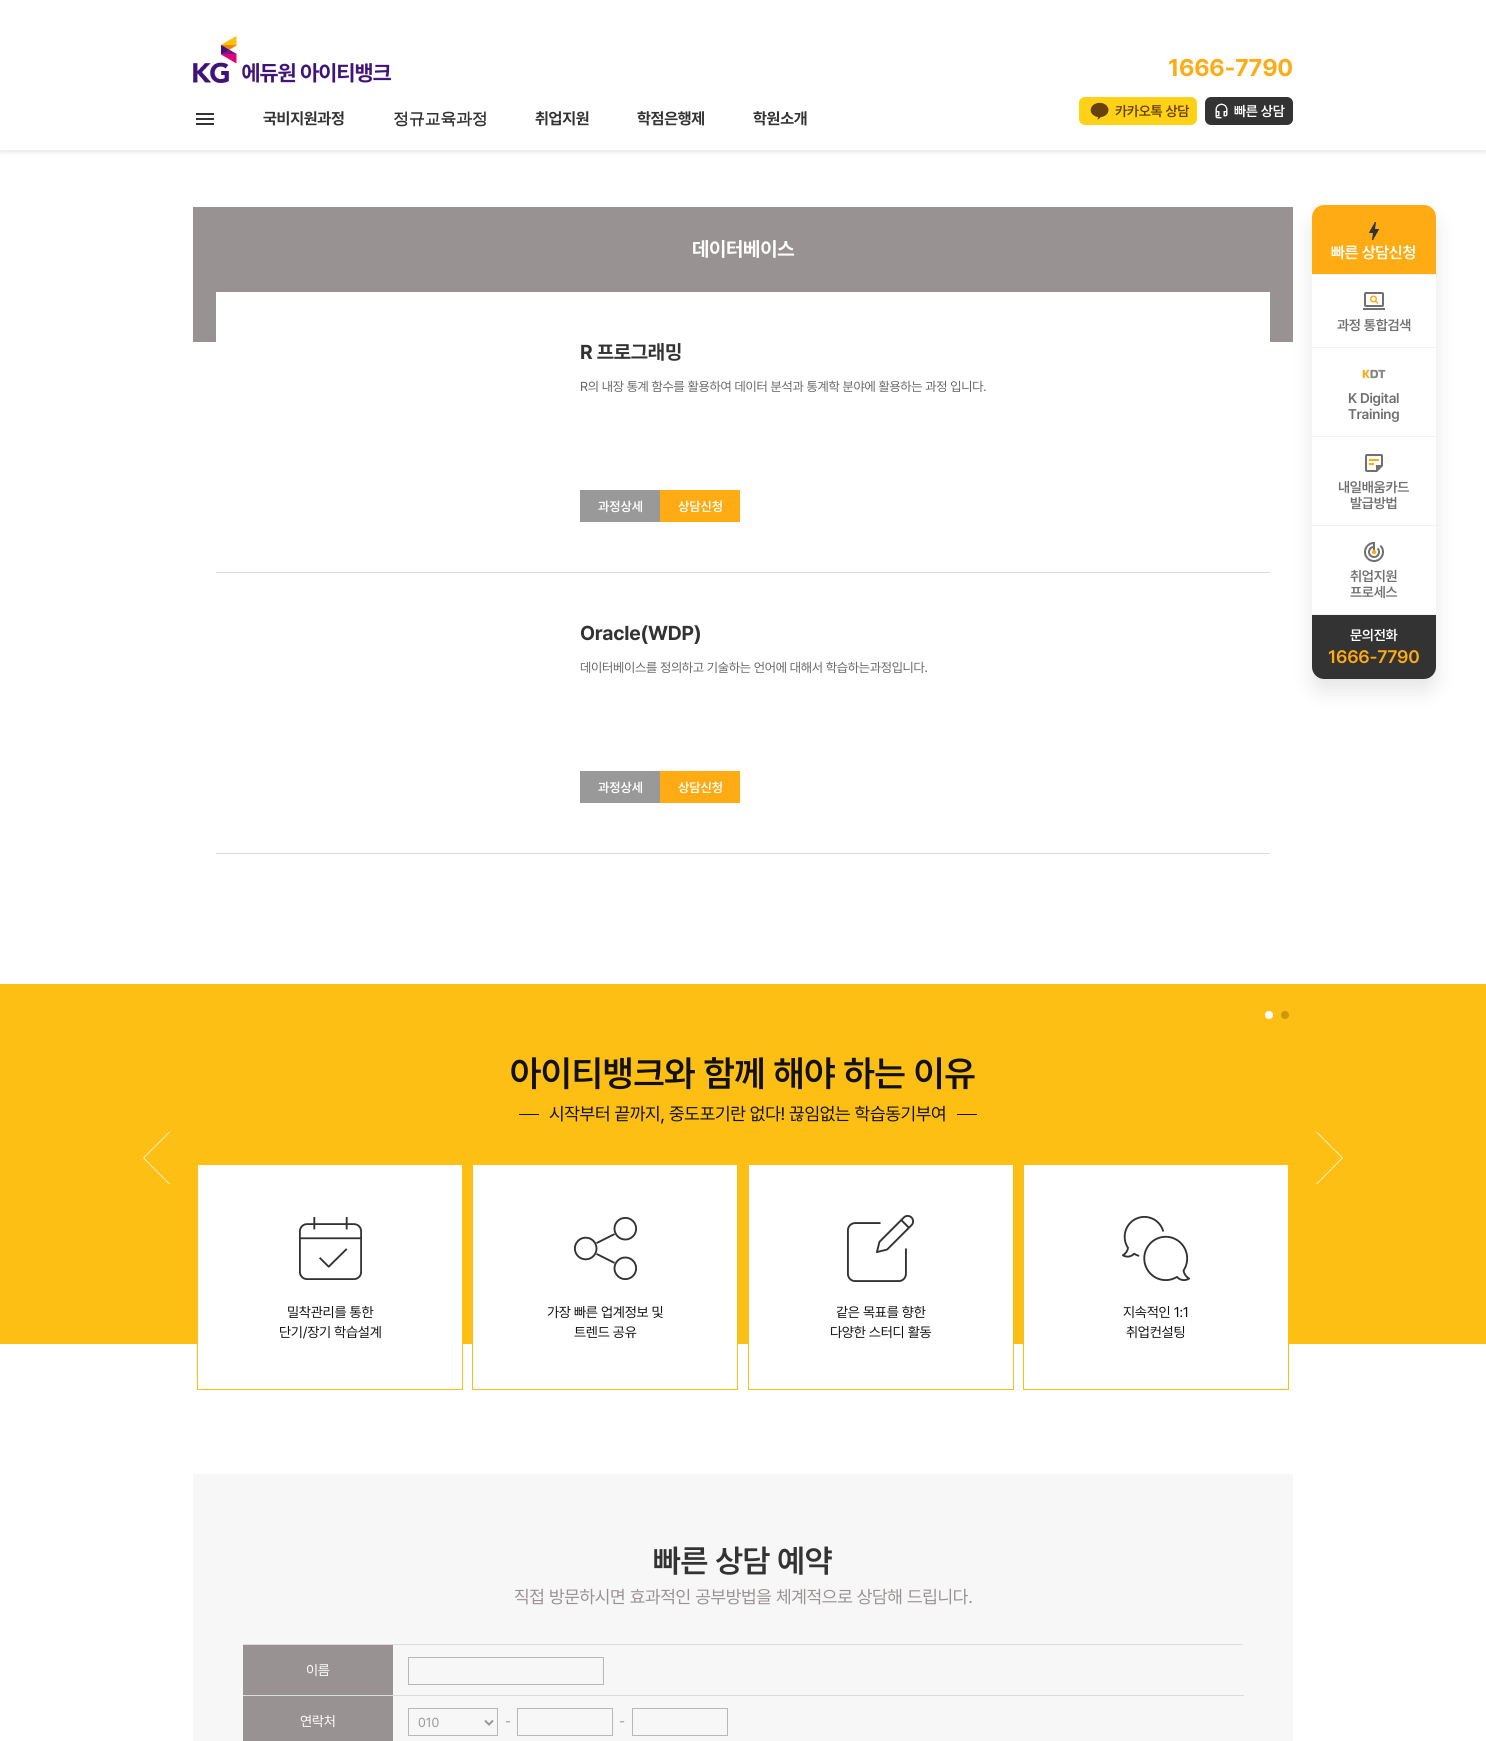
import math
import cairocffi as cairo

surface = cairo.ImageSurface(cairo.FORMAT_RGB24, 1486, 1741)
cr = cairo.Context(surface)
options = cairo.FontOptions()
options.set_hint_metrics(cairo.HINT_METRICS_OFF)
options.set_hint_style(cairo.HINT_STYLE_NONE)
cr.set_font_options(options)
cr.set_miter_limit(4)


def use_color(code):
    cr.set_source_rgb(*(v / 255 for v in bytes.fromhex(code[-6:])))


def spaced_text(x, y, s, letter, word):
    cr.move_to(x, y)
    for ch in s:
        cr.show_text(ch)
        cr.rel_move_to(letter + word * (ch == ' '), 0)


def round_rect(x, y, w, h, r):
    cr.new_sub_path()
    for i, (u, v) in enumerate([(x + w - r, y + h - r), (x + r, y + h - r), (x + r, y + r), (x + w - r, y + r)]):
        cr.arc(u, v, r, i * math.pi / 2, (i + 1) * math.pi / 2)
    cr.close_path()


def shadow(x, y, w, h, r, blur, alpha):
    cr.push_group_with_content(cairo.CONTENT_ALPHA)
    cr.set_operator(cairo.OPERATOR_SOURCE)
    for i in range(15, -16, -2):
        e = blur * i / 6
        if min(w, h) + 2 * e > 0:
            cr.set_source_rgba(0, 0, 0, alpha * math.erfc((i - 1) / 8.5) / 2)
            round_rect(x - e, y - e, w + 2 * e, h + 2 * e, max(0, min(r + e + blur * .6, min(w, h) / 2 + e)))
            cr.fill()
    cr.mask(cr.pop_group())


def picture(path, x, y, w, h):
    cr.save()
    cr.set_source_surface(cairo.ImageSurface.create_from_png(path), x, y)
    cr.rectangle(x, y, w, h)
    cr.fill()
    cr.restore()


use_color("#ffffff")
cr.paint()
use_color("#000000")
shadow(0, 2, 1486, 150, 0, 2.5, 0.1)
use_color("#ffffff")
cr.rectangle(0, 0, 1486, 150)
cr.fill()
picture("img1.png", 196, 113, 18, 12)
cr.select_font_face("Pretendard", cairo.FONT_SLANT_NORMAL, cairo.FONT_WEIGHT_BOLD)
cr.set_font_size(16)
use_color("#333333")
spaced_text(263, 124, "국비지원과정", -0.25, 0)
cr.select_font_face("WenQuanYi Zen Hei", cairo.FONT_SLANT_NORMAL, cairo.FONT_WEIGHT_BOLD)
spaced_text(393, 124, "정규교육과정", -0.25, 0)
cr.select_font_face("Pretendard", cairo.FONT_SLANT_NORMAL, cairo.FONT_WEIGHT_BOLD)
spaced_text(535, 124, "취업지원", -0.25, 0)
spaced_text(637, 124, "학점은행제", -0.25, 0)
spaced_text(753, 124, "학원소개", -0.25, 0)
picture("img2.png", 193, 36, 199, 47)
cr.set_font_size(24)
use_color("#feab14")
spaced_text(1168, 76, "1666-7790", -0.25, 0)
use_color("#ffd117")
round_rect(1079, 97, 118, 28, 6)
cr.fill()
picture("img3.png", 1090, 102, 19, 18)
cr.select_font_face("Pretendard SemiBold")
cr.set_font_size(14)
use_color("#67420d")
spaced_text(1115, 116, "카카오톡 상담", -0.25, 0)
use_color("#333333")
round_rect(1205, 97, 88, 28, 6)
cr.fill()
picture("img4.png", 1215, 103, 13, 16)
use_color("#ffffff")
spaced_text(1234, 116, "빠른 상담", -0.25, 0)
use_color("#999292")
cr.rectangle(193, 207, 1100, 135)
cr.fill()
cr.select_font_face("Pretendard", cairo.FONT_SLANT_NORMAL, cairo.FONT_WEIGHT_BOLD)
cr.set_font_size(20)
use_color("#ffffff")
spaced_text(692, 256, "데이터베이스", -0.25, 0)
cr.rectangle(216, 292, 1054, 50)
cr.fill()
use_color("#dcdcdc")
cr.rectangle(216, 572, 1054, 1)
cr.fill()
use_color("#333333")
spaced_text(580, 359, "R 프로그래밍", -0.25, 0)
cr.select_font_face("Pretendard")
cr.set_font_size(13)
use_color("#666666")
spaced_text(580, 391, "R의 내장 통계 함수를 활용하여 데이터 분석과 통계학 분야에 활용하는 과정 입니다.", -0.25, 0)
use_color("#999999")
cr.rectangle(580, 490, 80, 32)
cr.fill()
cr.select_font_face("Pretendard SemiBold")
use_color("#ffffff")
cr.move_to(598, 511)
cr.show_text("과정상세")
use_color("#feab14")
cr.rectangle(660, 490, 80, 32)
cr.fill()
use_color("#ffffff")
cr.move_to(678, 511)
cr.show_text("상담신청")
use_color("#dcdcdc")
cr.rectangle(216, 853, 1054, 1)
cr.fill()
cr.select_font_face("Pretendard", cairo.FONT_SLANT_NORMAL, cairo.FONT_WEIGHT_BOLD)
cr.set_font_size(20)
use_color("#333333")
spaced_text(580, 640, "Oracle(WDP)", -0.25, 0)
cr.select_font_face("Pretendard")
cr.set_font_size(13)
use_color("#666666")
spaced_text(580, 672, "데이터베이스를 정의하고 기술하는 언어에 대해서 학습하는과정입니다.", -0.25, 0)
use_color("#999999")
cr.rectangle(580, 771, 80, 32)
cr.fill()
cr.select_font_face("Pretendard SemiBold")
use_color("#ffffff")
cr.move_to(598, 792)
cr.show_text("과정상세")
use_color("#feab14")
cr.rectangle(660, 771, 80, 32)
cr.fill()
use_color("#ffffff")
cr.move_to(678, 792)
cr.show_text("상담신청")
use_color("#febf14")
cr.rectangle(0, 984, 1486, 360)
cr.fill()
use_color("#ffffff")
cr.arc(1269, 1015, 4, 0, 2 * math.pi)
cr.fill()
use_color("#cb9910")
cr.arc(1285, 1015, 4, 0, 2 * math.pi)
cr.fill()
cr.set_font_size(36)
use_color("#111111")
spaced_text(510, 1086, "아이티뱅크와 함께 해야 하는 이유", -0.25, 0)
cr.rectangle(519, 1114, 20, 1)
cr.fill()
cr.select_font_face("Pretendard")
cr.set_font_size(18)
spaced_text(549, 1120, "시작부터 끝까지, 중도포기란 없다! 끊임없는 학습동기부여", -0.25, 0)
cr.rectangle(957, 1114, 20, 1)
cr.fill()
use_color("#ffffff")
cr.rectangle(198, 1165, 264, 179)
cr.fill()
cr.rectangle(197.5, 1164.5, 265, 225)
use_color("#febf14")
cr.set_line_width(1)
cr.stroke()
picture("img5.png", 299, 1217, 63, 63)
cr.set_font_size(14)
use_color("#111111")
spaced_text(287, 1317, "밀착관리를 통한", -0.25, 0)
spaced_text(279, 1337, "단기/장기 학습설계", -0.25, 0)
use_color("#ffffff")
cr.rectangle(473, 1165, 264, 179)
cr.fill()
cr.rectangle(472.5, 1164.5, 265, 225)
use_color("#febf14")
cr.stroke()
picture("img6.png", 574, 1217, 63, 63)
use_color("#111111")
spaced_text(547, 1317, "가장 빠른 업계정보 및", -0.25, 0)
spaced_text(574, 1337, "트렌드 공유", -0.25, 0)
use_color("#ffffff")
cr.rectangle(749, 1165, 264, 179)
cr.fill()
cr.rectangle(748.5, 1164.5, 265, 225)
use_color("#febf14")
cr.stroke()
picture("img7.png", 847, 1215, 67, 67)
use_color("#111111")
spaced_text(836, 1317, "같은 목표를 향한", -0.25, 0)
spaced_text(830, 1337, "다양한 스터디 활동", -0.25, 0)
use_color("#ffffff")
cr.rectangle(1024, 1165, 264, 179)
cr.fill()
cr.rectangle(1023.5, 1164.5, 265, 225)
use_color("#febf14")
cr.stroke()
picture("img8.png", 1122, 1216, 68, 65)
use_color("#111111")
spaced_text(1123, 1317, "지속적인 1:1", -0.25, 0)
spaced_text(1126, 1337, "취업컨설팅", -0.25, 0)
picture("img9.png", 143, 1132, 27, 52)
picture("img10.png", 1316, 1132, 27, 52)
use_color("#f7f7f7")
cr.rectangle(193, 1474, 1100, 267)
cr.fill()
cr.select_font_face("Pretendard SemiBold")
cr.set_font_size(32)
use_color("#333333")
spaced_text(653, 1572, "빠른 상담 예약", -0.25, 0)
cr.select_font_face("Pretendard")
cr.set_font_size(18)
use_color("#999292")
spaced_text(514, 1603, "직접 방문하시면 효과적인 공부방법을 체계적으로 상담해 드립니다.", -0.25, 0)
use_color("#dcdcdc")
cr.rectangle(243, 1644, 1000, 1)
cr.fill()
cr.rectangle(243, 1695, 1001, 1)
cr.fill()
use_color("#999292")
cr.rectangle(243, 1645, 150, 50)
cr.fill()
cr.set_font_size(14)
use_color("#ffffff")
spaced_text(306, 1675, "이름", -0.25, 0)
cr.rectangle(408.5, 1657.5, 195, 27)
use_color("#b8b8b8")
cr.stroke()
use_color("#999292")
cr.rectangle(243, 1696, 150, 45)
cr.fill()
use_color("#ffffff")
spaced_text(300, 1726, "연락처", -0.25, 0)
cr.rectangle(408.5, 1708.5, 89, 27)
use_color("#b8b8b8")
cr.stroke()
cr.new_path()
cr.move_to(485, 1720.5)
cr.line_to(489, 1724.5)
cr.line_to(493, 1720.5)
use_color("#999999")
cr.set_line_width(2)
cr.stroke()
cr.set_font_size(13)
cr.move_to(418, 1727)
cr.show_text("010")
cr.set_font_size(14)
spaced_text(505, 1726, "-", -0.25, 0)
cr.rectangle(517.5, 1708.5, 95, 27)
use_color("#b8b8b8")
cr.set_line_width(1)
cr.stroke()
use_color("#999999")
spaced_text(619, 1726, "-", -0.25, 0)
cr.rectangle(632.5, 1708.5, 95, 27)
use_color("#b8b8b8")
cr.stroke()
cr.save()
cr.set_fill_rule(cairo.FILL_RULE_EVEN_ODD)
cr.new_path()
cr.move_to(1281, 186)
cr.line_to(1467, 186)
cr.line_to(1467, 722)
cr.line_to(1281, 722)
cr.close_path()
cr.move_to(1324, 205)
cr.line_to(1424, 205)
cr.curve_to(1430.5, 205, 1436, 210.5, 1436, 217)
cr.line_to(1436, 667)
cr.curve_to(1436, 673.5, 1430.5, 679, 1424, 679)
cr.line_to(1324, 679)
cr.curve_to(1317.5, 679, 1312, 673.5, 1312, 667)
cr.line_to(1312, 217)
cr.curve_to(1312, 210.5, 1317.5, 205, 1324, 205)
cr.close_path()
cr.clip()
use_color("#000000")
shadow(1312, 217, 124, 474, 12, 10, 0.1)
cr.restore()
use_color("#feab14")
cr.new_path()
cr.move_to(1324, 205)
cr.line_to(1424, 205)
cr.curve_to(1430.5, 205, 1436, 210.5, 1436, 217)
cr.line_to(1436, 274)
cr.line_to(1312, 274)
cr.line_to(1312, 217)
cr.curve_to(1312, 210.5, 1317.5, 205, 1324, 205)
cr.close_path()
cr.fill()
picture("img11.png", 1369, 222, 10, 18)
cr.select_font_face("Pretendard SemiBold")
cr.set_font_size(16)
use_color("#ffffff")
spaced_text(1331, 258, "빠른 상담신청", -0.25, 0)
use_color("#f2f2f2")
cr.rectangle(1312, 274, 124, 1)
cr.fill()
cr.rectangle(1312, 347, 124, 1)
cr.fill()
picture("img12.png", 1363, 292, 22, 18)
cr.set_font_size(14)
use_color("#707070")
spaced_text(1337, 330, "과정 통합검색", -0.25, 0)
use_color("#f2f2f2")
cr.rectangle(1312, 436, 124, 1)
cr.fill()
picture("img13.png", 1362, 369, 24, 10)
use_color("#707070")
spaced_text(1348, 403, "K Digital", -0.25, 0)
spaced_text(1348, 419, "Training", -0.25, 0)
use_color("#f2f2f2")
cr.rectangle(1312, 525, 124, 1)
cr.fill()
picture("img14.png", 1365, 454, 18, 18)
use_color("#707070")
spaced_text(1338, 492, "내일배움카드", -0.25, 0)
spaced_text(1350, 508, "발급방법", -0.25, 0)
use_color("#f2f2f2")
cr.rectangle(1312, 614, 124, 1)
cr.fill()
picture("img15.png", 1364, 542, 20, 20)
use_color("#707070")
spaced_text(1350, 581, "취업지원", -0.25, 0)
spaced_text(1350, 597, "프로세스", -0.25, 0)
use_color("#333333")
cr.new_path()
cr.move_to(1312, 615)
cr.line_to(1436, 615)
cr.line_to(1436, 667)
cr.curve_to(1436, 673.5, 1430.5, 679, 1424, 679)
cr.line_to(1324, 679)
cr.curve_to(1317.5, 679, 1312, 673.5, 1312, 667)
cr.close_path()
cr.fill()
use_color("#ffffff")
spaced_text(1350, 640, "문의전화", -0.25, 0)
cr.set_font_size(18)
use_color("#feab14")
spaced_text(1328, 663, "1666-7790", -0.25, 0)
surface.write_to_png("result.png")
